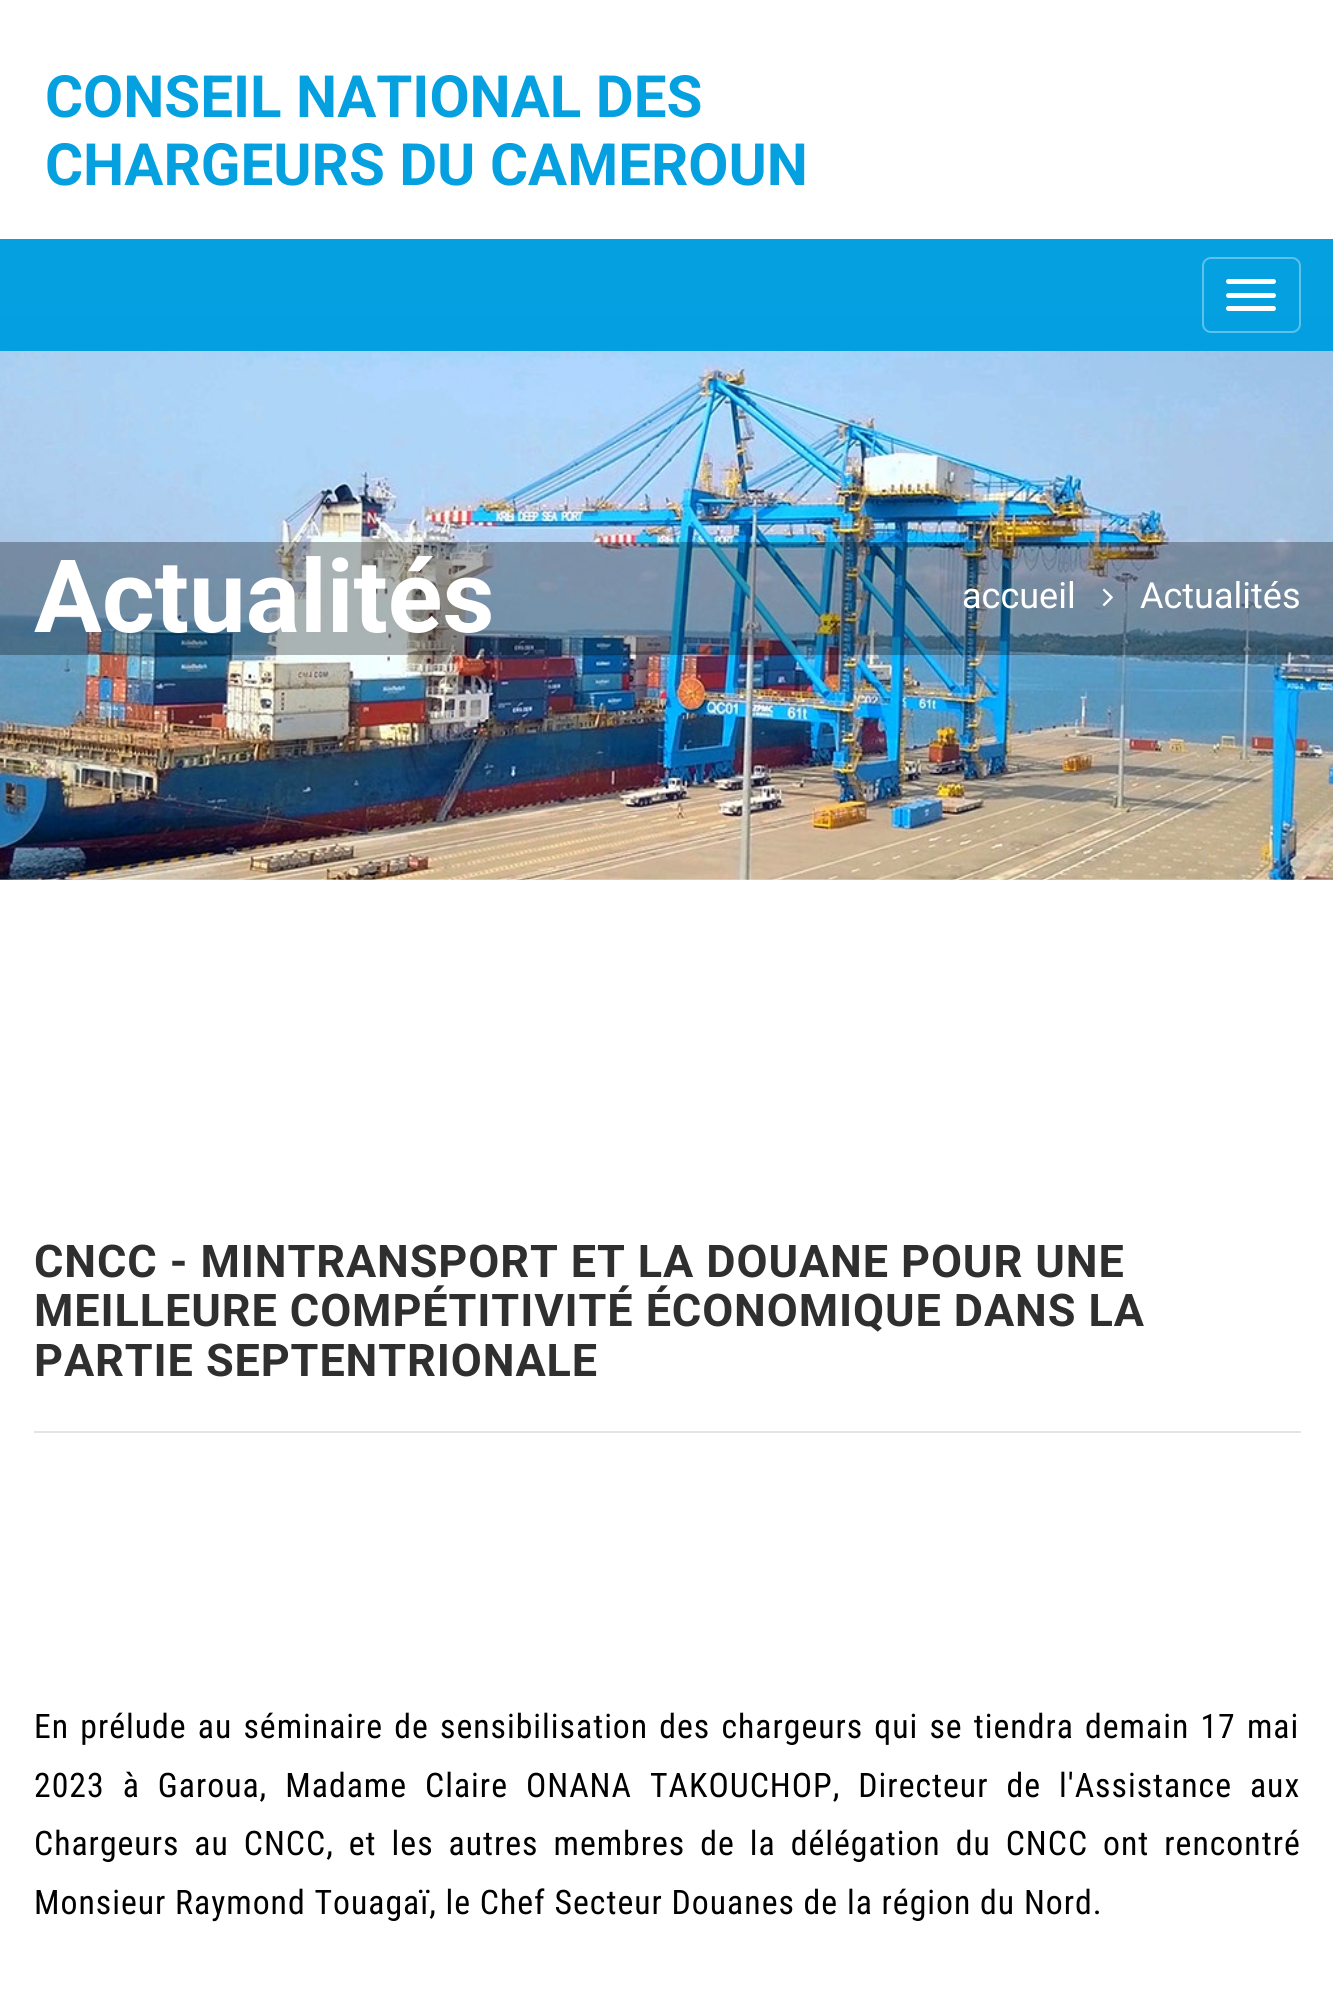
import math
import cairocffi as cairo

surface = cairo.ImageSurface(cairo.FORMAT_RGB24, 1333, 2006)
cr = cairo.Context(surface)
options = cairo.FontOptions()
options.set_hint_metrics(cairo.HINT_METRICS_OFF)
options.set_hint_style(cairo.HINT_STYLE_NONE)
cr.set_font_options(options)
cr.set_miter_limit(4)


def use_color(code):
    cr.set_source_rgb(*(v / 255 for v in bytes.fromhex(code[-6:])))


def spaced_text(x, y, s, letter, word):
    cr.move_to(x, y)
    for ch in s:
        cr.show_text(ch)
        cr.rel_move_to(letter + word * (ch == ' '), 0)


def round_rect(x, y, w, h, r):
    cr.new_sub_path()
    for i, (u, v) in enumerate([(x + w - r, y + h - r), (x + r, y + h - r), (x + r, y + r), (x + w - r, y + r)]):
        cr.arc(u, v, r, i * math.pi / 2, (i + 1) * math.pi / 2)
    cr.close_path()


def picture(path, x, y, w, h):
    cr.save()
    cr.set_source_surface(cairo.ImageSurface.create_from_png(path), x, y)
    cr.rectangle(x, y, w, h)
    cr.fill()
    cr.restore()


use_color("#ffffff")
cr.paint()
cr.select_font_face("Roboto", cairo.FONT_SLANT_NORMAL, cairo.FONT_WEIGHT_BOLD)
cr.set_font_size(58.25)
use_color("#05a0e0")
cr.move_to(45, 117)
cr.show_text("CONSEIL NATIONAL DES")
cr.move_to(45, 185)
cr.show_text("CHARGEURS DU CAMEROUN")
picture("img1.png", 0, 317, 1333, 563)
cr.set_source_rgba(0, 0.62, 0.875, 0.98)
cr.rectangle(0, 239, 1333, 112)
cr.fill()
round_rect(1203, 258, 97, 74, 8)
use_color("#5cc1eb")
cr.stroke()
use_color("#ffffff")
round_rect(1226, 279, 50, 5, 2.5)
cr.fill()
round_rect(1226, 293, 50, 5, 2.5)
cr.fill()
round_rect(1226, 306, 50, 5, 2.5)
cr.fill()
cr.set_source_rgba(0, 0, 0, 0.3)
cr.rectangle(0, 542, 1333, 113)
cr.fill()
cr.set_font_size(101.25)
use_color("#ffffff")
cr.move_to(34, 632)
cr.show_text("Actualités")
cr.select_font_face("Roboto")
cr.set_font_size(36)
cr.move_to(962, 608)
cr.show_text("accueil")
picture("img2.png", 1102, 588, 11, 19)
cr.move_to(1140, 608)
cr.show_text("Actualités")
use_color("#e4e4e4")
cr.rectangle(34, 1431, 1267, 2)
cr.fill()
cr.select_font_face("Roboto", cairo.FONT_SLANT_NORMAL, cairo.FONT_WEIGHT_BOLD)
cr.set_font_size(45)
use_color("#2f2f30")
spaced_text(34, 1277, "CNCC - MINTRANSPORT ET LA DOUANE POUR UNE", 0.9, 0)
spaced_text(34, 1326, "MEILLEURE COMPÉTITIVITÉ ÉCONOMIQUE DANS LA", 0.9, 0)
spaced_text(34, 1376, "PARTIE SEPTENTRIONALE", 0.9, 0)
cr.select_font_face("Roboto Condensed")
cr.set_font_size(33.75)
use_color("#000000")
spaced_text(34, 1738, "En prélude au séminaire de sensibilisation des chargeurs qui se tiendra demain 17 mai", 1, 2.4)
spaced_text(34, 1797, "2023 à Garoua, Madame Claire ONANA TAKOUCHOP, Directeur de l'Assistance aux", 1, 9.25)
spaced_text(34, 1855, "Chargeurs au CNCC, et les autres membres de la délégation du CNCC ont rencontré", 1, 6.25)
spaced_text(34, 1914, "Monsieur Raymond Touagaï, le Chef Secteur Douanes de la région du Nord.", 1, 0)
surface.write_to_png("result.png")
